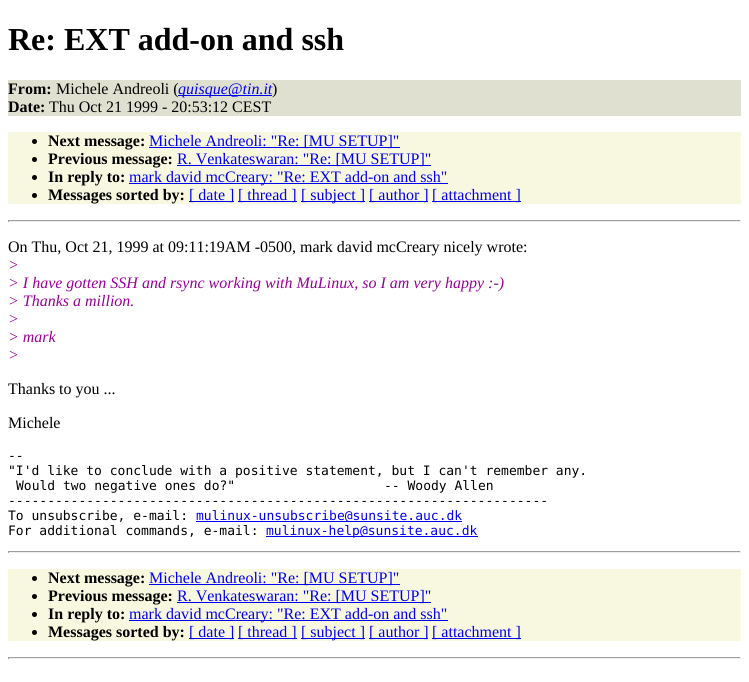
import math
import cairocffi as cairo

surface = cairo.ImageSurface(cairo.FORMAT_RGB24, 749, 682)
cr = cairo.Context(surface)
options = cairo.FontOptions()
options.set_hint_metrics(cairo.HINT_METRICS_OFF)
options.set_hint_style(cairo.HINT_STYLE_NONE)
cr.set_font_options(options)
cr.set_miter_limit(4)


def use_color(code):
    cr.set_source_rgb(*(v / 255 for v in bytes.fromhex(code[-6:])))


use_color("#ffffff")
cr.paint()
cr.select_font_face("Liberation Serif", cairo.FONT_SLANT_NORMAL, cairo.FONT_WEIGHT_BOLD)
cr.set_font_size(32)
use_color("#000000")
cr.move_to(8, 50)
cr.show_text("Re: EXT add-on and ssh")
use_color("#e0e0d0")
cr.rectangle(8, 80, 733, 36)
cr.fill()
cr.set_font_size(16)
use_color("#000000")
cr.move_to(8, 94)
cr.show_text("From:")
cr.select_font_face("Liberation Serif")
cr.move_to(56, 94)
cr.show_text("Michele Andreoli (")
use_color("#0000ee")
cr.rectangle(178, 95, 94, 1)
cr.fill()
cr.select_font_face("Liberation Serif", cairo.FONT_SLANT_ITALIC)
cr.move_to(178, 94)
cr.show_text("quisque@tin.it")
cr.select_font_face("Liberation Serif")
use_color("#000000")
cr.move_to(272, 94)
cr.show_text(")")
cr.select_font_face("Liberation Serif", cairo.FONT_SLANT_NORMAL, cairo.FONT_WEIGHT_BOLD)
cr.move_to(8, 112)
cr.show_text("Date:")
cr.select_font_face("Liberation Serif")
cr.move_to(49, 112)
cr.show_text("Thu Oct 21 1999 - 20:53:12 CEST")
use_color("#f8f8e0")
cr.rectangle(8, 132, 733, 72)
cr.fill()
use_color("#000000")
cr.arc(34.5, 141.5, 2.5, 0, 2 * math.pi)
cr.fill()
cr.select_font_face("Liberation Serif", cairo.FONT_SLANT_NORMAL, cairo.FONT_WEIGHT_BOLD)
cr.move_to(48, 146)
cr.show_text("Next message:")
use_color("#0000ee")
cr.rectangle(149, 147, 251, 1)
cr.fill()
cr.select_font_face("Liberation Serif")
cr.move_to(149, 146)
cr.show_text("Michele Andreoli: \"Re: [MU SETUP]\"")
use_color("#000000")
cr.new_path()
cr.arc(34.5, 159.5, 2.5, 0, 2 * math.pi)
cr.fill()
cr.select_font_face("Liberation Serif", cairo.FONT_SLANT_NORMAL, cairo.FONT_WEIGHT_BOLD)
cr.move_to(48, 164)
cr.show_text("Previous message:")
use_color("#0000ee")
cr.rectangle(177, 165, 254, 1)
cr.fill()
cr.select_font_face("Liberation Serif")
cr.move_to(177, 164)
cr.show_text("R. Venkateswaran: \"Re: [MU SETUP]\"")
use_color("#000000")
cr.new_path()
cr.arc(34.5, 177.5, 2.5, 0, 2 * math.pi)
cr.fill()
cr.select_font_face("Liberation Serif", cairo.FONT_SLANT_NORMAL, cairo.FONT_WEIGHT_BOLD)
cr.move_to(48, 182)
cr.show_text("In reply to:")
use_color("#0000ee")
cr.rectangle(129, 183, 319, 1)
cr.fill()
cr.select_font_face("Liberation Serif")
cr.move_to(129, 182)
cr.show_text("mark david mcCreary: \"Re: EXT add-on and ssh\"")
use_color("#000000")
cr.new_path()
cr.arc(34.5, 195.5, 2.5, 0, 2 * math.pi)
cr.fill()
cr.select_font_face("Liberation Serif", cairo.FONT_SLANT_NORMAL, cairo.FONT_WEIGHT_BOLD)
cr.move_to(48, 200)
cr.show_text("Messages sorted by:")
use_color("#0000ee")
cr.rectangle(189, 201, 45, 1)
cr.fill()
cr.select_font_face("Liberation Serif")
cr.move_to(189, 200)
cr.show_text("[ date ]")
cr.rectangle(238, 201, 59, 1)
cr.fill()
cr.move_to(238, 200)
cr.show_text("[ thread ]")
cr.rectangle(301, 201, 64, 1)
cr.fill()
cr.move_to(301, 200)
cr.show_text("[ subject ]")
cr.rectangle(369, 201, 59, 1)
cr.fill()
cr.move_to(369, 200)
cr.show_text("[ author ]")
cr.rectangle(432, 201, 89, 1)
cr.fill()
cr.move_to(432, 200)
cr.show_text("[ attachment ]")
use_color("#9f9f9f")
cr.rectangle(8, 220, 733, 1)
cr.fill()
use_color("#eeeeee")
cr.rectangle(740, 220, 1, 2)
cr.fill()
cr.rectangle(8, 221, 733, 1)
cr.fill()
use_color("#9f9f9f")
cr.rectangle(8, 220, 1, 2)
cr.fill()
use_color("#000000")
cr.move_to(8, 252)
cr.show_text("On Thu, Oct 21, 1999 at 09:11:19AM -0500, mark david mcCreary nicely wrote:")
cr.select_font_face("Liberation Serif", cairo.FONT_SLANT_ITALIC)
use_color("#990099")
cr.move_to(8, 270)
cr.show_text(">")
cr.move_to(8, 288)
cr.show_text("> I have gotten SSH and rsync working with MuLinux, so I am very happy :-)")
cr.move_to(8, 306)
cr.show_text("> Thanks a million.")
cr.move_to(8, 324)
cr.show_text(">")
cr.move_to(8, 342)
cr.show_text("> mark")
cr.move_to(8, 360)
cr.show_text(">")
cr.select_font_face("Liberation Serif")
use_color("#000000")
cr.move_to(8, 394)
cr.show_text("Thanks to you ...")
cr.move_to(8, 428)
cr.show_text("Michele")
cr.select_font_face("DejaVu Sans Mono")
cr.set_font_size(13)
cr.move_to(8, 460)
cr.show_text("--")
cr.move_to(8, 475)
cr.show_text("\"I'd like to conclude with a positive statement, but I can't remember any.")
cr.move_to(16, 490)
cr.show_text("Would two negative ones do?\"")
cr.move_to(384, 490)
cr.show_text("-- Woody Allen")
cr.move_to(8, 505)
cr.show_text("---------------------------------------------------------------------")
cr.move_to(8, 520)
cr.show_text("To unsubscribe, e-mail:")
use_color("#0000ee")
cr.rectangle(196, 521, 266, 1)
cr.fill()
cr.move_to(196, 520)
cr.show_text("mulinux-unsubscribe@sunsite.auc.dk")
use_color("#000000")
cr.move_to(8, 535)
cr.show_text("For additional commands, e-mail:")
use_color("#0000ee")
cr.rectangle(266, 536, 212, 1)
cr.fill()
cr.move_to(266, 535)
cr.show_text("mulinux-help@sunsite.auc.dk")
use_color("#9f9f9f")
cr.rectangle(8, 551, 733, 1)
cr.fill()
use_color("#eeeeee")
cr.rectangle(740, 551, 1, 2)
cr.fill()
cr.rectangle(8, 552, 733, 1)
cr.fill()
use_color("#9f9f9f")
cr.rectangle(8, 551, 1, 2)
cr.fill()
use_color("#f8f8e0")
cr.rectangle(8, 569, 733, 72)
cr.fill()
use_color("#000000")
cr.arc(34.5, 578.5, 2.5, 0, 2 * math.pi)
cr.fill()
cr.select_font_face("Liberation Serif", cairo.FONT_SLANT_NORMAL, cairo.FONT_WEIGHT_BOLD)
cr.set_font_size(16)
cr.move_to(48, 583)
cr.show_text("Next message:")
use_color("#0000ee")
cr.rectangle(149, 584, 251, 1)
cr.fill()
cr.select_font_face("Liberation Serif")
cr.move_to(149, 583)
cr.show_text("Michele Andreoli: \"Re: [MU SETUP]\"")
use_color("#000000")
cr.new_path()
cr.arc(34.5, 596.5, 2.5, 0, 2 * math.pi)
cr.fill()
cr.select_font_face("Liberation Serif", cairo.FONT_SLANT_NORMAL, cairo.FONT_WEIGHT_BOLD)
cr.move_to(48, 601)
cr.show_text("Previous message:")
use_color("#0000ee")
cr.rectangle(177, 602, 254, 1)
cr.fill()
cr.select_font_face("Liberation Serif")
cr.move_to(177, 601)
cr.show_text("R. Venkateswaran: \"Re: [MU SETUP]\"")
use_color("#000000")
cr.new_path()
cr.arc(34.5, 614.5, 2.5, 0, 2 * math.pi)
cr.fill()
cr.select_font_face("Liberation Serif", cairo.FONT_SLANT_NORMAL, cairo.FONT_WEIGHT_BOLD)
cr.move_to(48, 619)
cr.show_text("In reply to:")
use_color("#0000ee")
cr.rectangle(129, 620, 319, 1)
cr.fill()
cr.select_font_face("Liberation Serif")
cr.move_to(129, 619)
cr.show_text("mark david mcCreary: \"Re: EXT add-on and ssh\"")
use_color("#000000")
cr.new_path()
cr.arc(34.5, 632.5, 2.5, 0, 2 * math.pi)
cr.fill()
cr.select_font_face("Liberation Serif", cairo.FONT_SLANT_NORMAL, cairo.FONT_WEIGHT_BOLD)
cr.move_to(48, 637)
cr.show_text("Messages sorted by:")
use_color("#0000ee")
cr.rectangle(189, 638, 45, 1)
cr.fill()
cr.select_font_face("Liberation Serif")
cr.move_to(189, 637)
cr.show_text("[ date ]")
cr.rectangle(238, 638, 59, 1)
cr.fill()
cr.move_to(238, 637)
cr.show_text("[ thread ]")
cr.rectangle(301, 638, 64, 1)
cr.fill()
cr.move_to(301, 637)
cr.show_text("[ subject ]")
cr.rectangle(369, 638, 59, 1)
cr.fill()
cr.move_to(369, 637)
cr.show_text("[ author ]")
cr.rectangle(432, 638, 89, 1)
cr.fill()
cr.move_to(432, 637)
cr.show_text("[ attachment ]")
use_color("#9f9f9f")
cr.rectangle(8, 657, 733, 1)
cr.fill()
use_color("#eeeeee")
cr.rectangle(740, 657, 1, 2)
cr.fill()
cr.rectangle(8, 658, 733, 1)
cr.fill()
use_color("#9f9f9f")
cr.rectangle(8, 657, 1, 2)
cr.fill()
surface.write_to_png("result.png")
